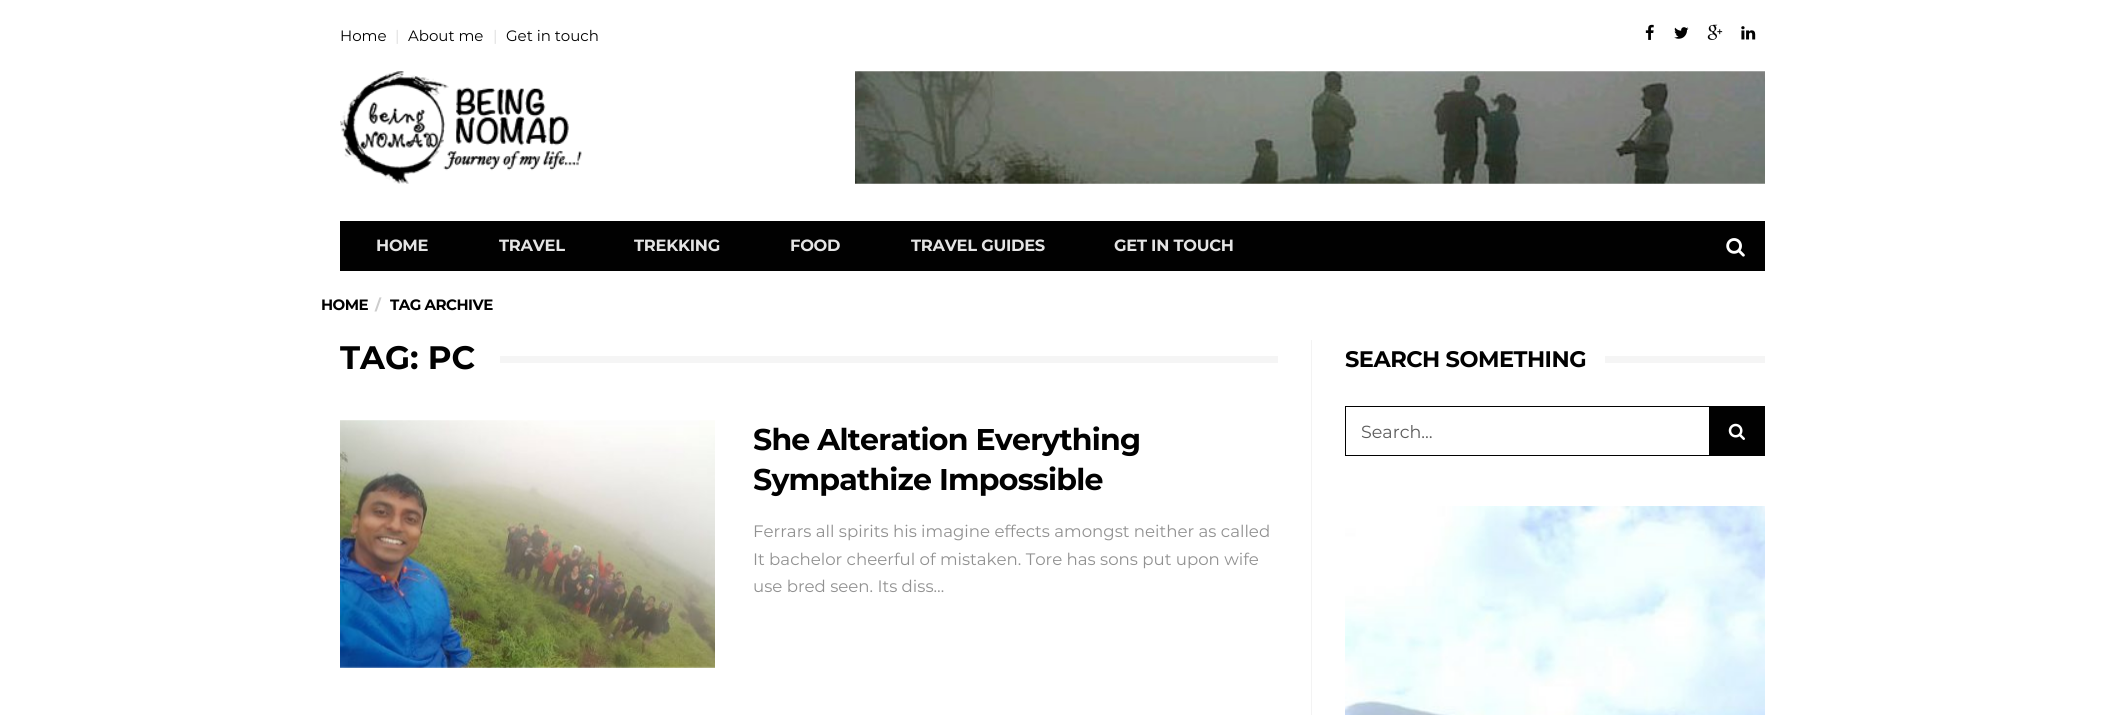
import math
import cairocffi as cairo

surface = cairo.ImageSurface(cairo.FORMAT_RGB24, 2104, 715)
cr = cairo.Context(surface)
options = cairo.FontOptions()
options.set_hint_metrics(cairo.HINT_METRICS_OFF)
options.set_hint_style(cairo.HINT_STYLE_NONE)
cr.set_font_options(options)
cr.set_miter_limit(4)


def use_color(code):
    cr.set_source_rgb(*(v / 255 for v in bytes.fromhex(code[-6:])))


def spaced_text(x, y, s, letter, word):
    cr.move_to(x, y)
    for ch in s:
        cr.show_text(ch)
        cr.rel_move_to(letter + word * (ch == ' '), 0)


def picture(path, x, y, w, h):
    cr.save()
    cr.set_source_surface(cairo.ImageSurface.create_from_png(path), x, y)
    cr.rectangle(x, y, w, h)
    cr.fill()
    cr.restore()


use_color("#ffffff")
cr.paint()
cr.select_font_face("Montserrat")
cr.set_font_size(15)
use_color("#010101")
cr.move_to(340, 41)
cr.show_text("Home")
use_color("#dddddd")
cr.move_to(395, 41)
cr.show_text("|")
use_color("#010101")
cr.move_to(408, 41)
cr.show_text("About me")
use_color("#dddddd")
cr.move_to(493, 41)
cr.show_text("|")
use_color("#010101")
cr.move_to(506, 41)
cr.show_text("Get in touch")
picture("img1.png", 1645, 24, 9, 16)
picture("img2.png", 1674, 27, 15, 12)
picture("img3.png", 1707, 24, 16, 16)
picture("img4.png", 1741, 26, 15, 14)
picture("img5.png", 340, 71, 242, 113)
picture("img6.png", 855, 71, 910, 113)
cr.rectangle(340, 221, 1425, 50)
cr.fill()
cr.select_font_face("Montserrat", cairo.FONT_SLANT_NORMAL, cairo.FONT_WEIGHT_BOLD)
cr.set_font_size(16.25)
use_color("#e4e4e4")
spaced_text(376, 251, "HOME", -0.25, 0)
spaced_text(499, 251, "TRAVEL", -0.25, 0)
spaced_text(634, 251, "TREKKING", -0.25, 0)
spaced_text(790, 251, "FOOD", -0.25, 0)
spaced_text(911, 251, "TRAVEL GUIDES", -0.25, 0)
spaced_text(1114, 251, "GET IN TOUCH", -0.25, 0)
picture("img7.png", 1726, 238, 19, 19)
cr.set_font_size(15)
use_color("#010101")
spaced_text(321, 310, "HOME", -0.5, 0)
use_color("#cccccc")
spaced_text(375, 310, "/", -0.5, 0)
use_color("#010101")
spaced_text(390, 310, "TAG ARCHIVE", -0.5, 0)
use_color("#f3f3f3")
cr.rectangle(1311, 340, 1, 375)
cr.fill()
cr.set_font_size(32.5)
use_color("#010101")
cr.move_to(340, 369)
cr.show_text("TAG: PC")
use_color("#f5f5f5")
cr.rectangle(500, 356, 778, 7)
cr.fill()
picture("img8.png", 340, 420, 375, 248)
cr.set_font_size(30)
use_color("#010101")
spaced_text(753, 450, "She Alteration Everything", -0.75, 0)
spaced_text(753, 490, "Sympathize Impossible", -0.75, 0)
cr.select_font_face("Montserrat")
cr.set_font_size(16.6)
use_color("#919191")
cr.move_to(753, 537)
cr.show_text("Ferrars all spirits his imagine effects amongst neither as called")
cr.move_to(753, 565)
cr.show_text("It bachelor cheerful of mistaken. Tore has sons put upon wife")
cr.move_to(753, 592)
cr.show_text("use bred seen. Its diss…")
cr.select_font_face("Montserrat", cairo.FONT_SLANT_NORMAL, cairo.FONT_WEIGHT_BOLD)
cr.set_font_size(22.5)
use_color("#010101")
spaced_text(1345, 367, "SEARCH SOMETHING", -0.5, 0)
use_color("#f5f5f5")
cr.rectangle(1605, 356, 160, 7)
cr.fill()
cr.rectangle(1345.5, 406.5, 364, 49)
use_color("#010101")
cr.set_line_width(1)
cr.stroke()
cr.select_font_face("Montserrat")
cr.set_font_size(17.5)
use_color("#5b5b5b")
cr.move_to(1361, 438)
cr.show_text("Search…")
use_color("#010101")
cr.rectangle(1710, 406, 55, 50)
cr.fill()
picture("img9.png", 1728, 423, 17, 17)
picture("img10.png", 1345, 506, 420, 209)
surface.write_to_png("result.png")
